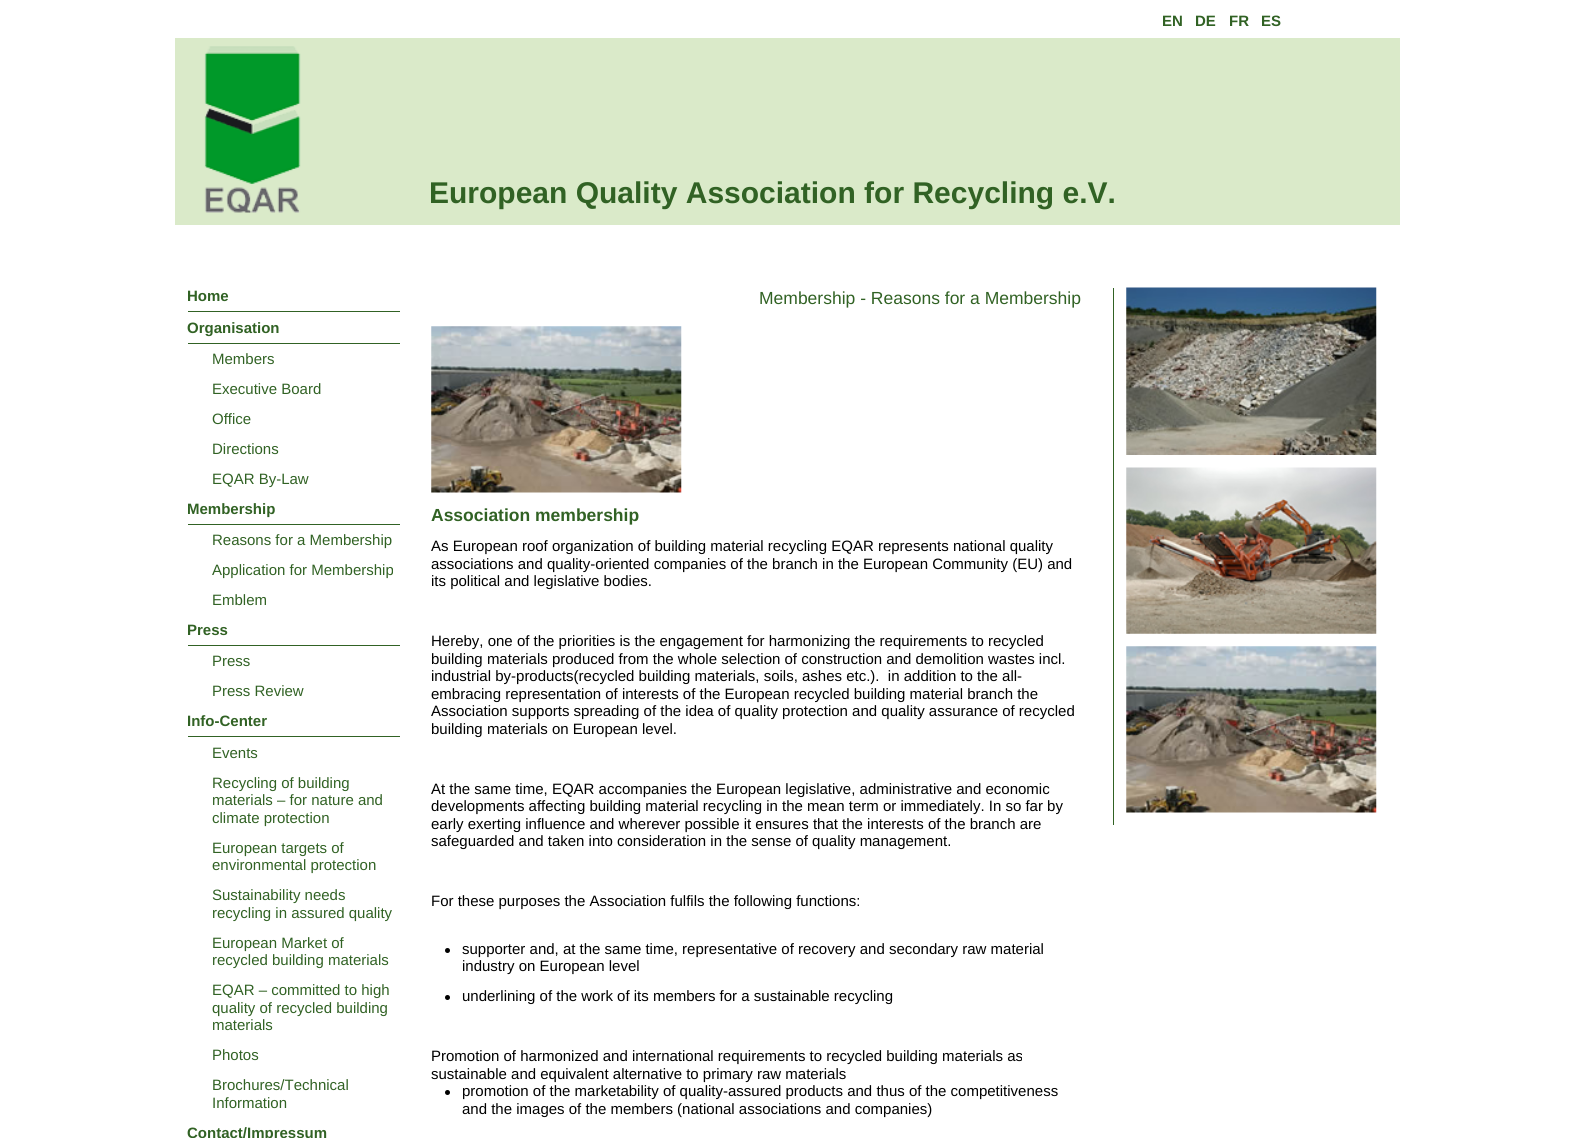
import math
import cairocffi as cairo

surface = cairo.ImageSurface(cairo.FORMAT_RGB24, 1573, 1138)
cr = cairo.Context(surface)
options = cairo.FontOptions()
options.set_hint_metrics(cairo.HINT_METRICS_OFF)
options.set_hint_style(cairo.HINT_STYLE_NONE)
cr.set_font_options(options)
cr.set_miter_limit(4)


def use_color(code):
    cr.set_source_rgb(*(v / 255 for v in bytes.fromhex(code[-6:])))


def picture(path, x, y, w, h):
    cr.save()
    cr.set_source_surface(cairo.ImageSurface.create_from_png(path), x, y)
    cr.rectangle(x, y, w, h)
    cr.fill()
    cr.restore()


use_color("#ffffff")
cr.paint()
cr.select_font_face("Liberation Sans", cairo.FONT_SLANT_NORMAL, cairo.FONT_WEIGHT_BOLD)
cr.set_font_size(15)
use_color("#316224")
cr.move_to(1162, 26)
cr.show_text("EN")
cr.move_to(1195, 26)
cr.show_text("DE")
cr.move_to(1229, 26)
cr.show_text("FR")
cr.move_to(1261, 26)
cr.show_text("ES")
use_color("#daeac9")
cr.rectangle(175, 38, 1225, 187)
cr.fill()
picture("img1.png", 204, 46, 97, 167)
cr.set_font_size(30)
use_color("#316224")
cr.move_to(429, 203)
cr.show_text("European Quality Association for Recycling e.V.")
cr.rectangle(188, 311, 212, 1)
cr.fill()
cr.set_font_size(15)
cr.move_to(187, 301)
cr.show_text("Home")
cr.rectangle(188, 343, 212, 1)
cr.fill()
cr.move_to(187, 333)
cr.show_text("Organisation")
cr.select_font_face("Liberation Sans")
cr.move_to(212, 364)
cr.show_text("Members")
cr.move_to(212, 394)
cr.show_text("Executive Board")
cr.move_to(212, 424)
cr.show_text("Office")
cr.move_to(212, 454)
cr.show_text("Directions")
cr.move_to(212, 484)
cr.show_text("EQAR By-Law")
cr.rectangle(188, 524, 212, 1)
cr.fill()
cr.select_font_face("Liberation Sans", cairo.FONT_SLANT_NORMAL, cairo.FONT_WEIGHT_BOLD)
cr.move_to(187, 514)
cr.show_text("Membership")
cr.select_font_face("Liberation Sans")
cr.move_to(212, 545)
cr.show_text("Reasons for a Membership")
cr.move_to(212, 575)
cr.show_text("Application for Membership")
cr.move_to(212, 605)
cr.show_text("Emblem")
cr.rectangle(188, 645, 212, 1)
cr.fill()
cr.select_font_face("Liberation Sans", cairo.FONT_SLANT_NORMAL, cairo.FONT_WEIGHT_BOLD)
cr.move_to(187, 635)
cr.show_text("Press")
cr.select_font_face("Liberation Sans")
cr.move_to(212, 666)
cr.show_text("Press")
cr.move_to(212, 696)
cr.show_text("Press Review")
cr.rectangle(188, 736, 212, 1)
cr.fill()
cr.select_font_face("Liberation Sans", cairo.FONT_SLANT_NORMAL, cairo.FONT_WEIGHT_BOLD)
cr.move_to(187, 726)
cr.show_text("Info-Center")
cr.select_font_face("Liberation Sans")
cr.move_to(212, 758)
cr.show_text("Events")
cr.move_to(212, 788)
cr.show_text("Recycling of building")
cr.move_to(212, 805)
cr.show_text("materials – for nature and")
cr.move_to(212, 823)
cr.show_text("climate protection")
cr.move_to(212, 853)
cr.show_text("European targets of")
cr.move_to(212, 870)
cr.show_text("environmental protection")
cr.move_to(212, 900)
cr.show_text("Sustainability needs")
cr.move_to(212, 918)
cr.show_text("recycling in assured quality")
cr.move_to(212, 948)
cr.show_text("European Market of")
cr.move_to(212, 965)
cr.show_text("recycled building materials")
cr.move_to(212, 995)
cr.show_text("EQAR – committed to high")
cr.move_to(212, 1013)
cr.show_text("quality of recycled building")
cr.move_to(212, 1030)
cr.show_text("materials")
cr.move_to(212, 1060)
cr.show_text("Photos")
cr.move_to(212, 1090)
cr.show_text("Brochures/Technical")
cr.move_to(212, 1108)
cr.show_text("Information")
cr.select_font_face("Liberation Sans", cairo.FONT_SLANT_NORMAL, cairo.FONT_WEIGHT_BOLD)
cr.move_to(187, 1138)
cr.show_text("Contact/Impressum")
cr.select_font_face("Liberation Sans")
cr.set_font_size(17.5)
cr.move_to(759, 304)
cr.show_text("Membership - Reasons for a Membership")
picture("img2.png", 431, 326, 251, 167)
cr.select_font_face("Liberation Sans", cairo.FONT_SLANT_NORMAL, cairo.FONT_WEIGHT_BOLD)
cr.move_to(431, 521)
cr.show_text("Association membership")
cr.select_font_face("Liberation Sans")
cr.set_font_size(15)
use_color("#000000")
cr.move_to(431, 551)
cr.show_text("As European roof organization of building material recycling EQAR represents national quality")
cr.move_to(431, 569)
cr.show_text("associations and quality-oriented companies of the branch in the European Community (EU) and")
cr.move_to(431, 586)
cr.show_text("its political and legislative bodies.")
cr.move_to(431, 646)
cr.show_text("Hereby, one of the priorities is the engagement for harmonizing the requirements to recycled")
cr.move_to(431, 664)
cr.show_text("building materials produced from the whole selection of construction and demolition wastes incl.")
cr.move_to(431, 681)
cr.show_text("industrial by-products(recycled building materials, soils, ashes etc.).  in addition to the all-")
cr.move_to(431, 699)
cr.show_text("embracing representation of interests of the European recycled building material branch the")
cr.move_to(431, 716)
cr.show_text("Association supports spreading of the idea of quality protection and quality assurance of recycled")
cr.move_to(431, 734)
cr.show_text("building materials on European level.")
cr.move_to(431, 794)
cr.show_text("At the same time, EQAR accompanies the European legislative, administrative and economic")
cr.move_to(431, 811)
cr.show_text("developments affecting building material recycling in the mean term or immediately. In so far by")
cr.move_to(431, 829)
cr.show_text("early exerting influence and wherever possible it ensures that the interests of the branch are")
cr.move_to(431, 846)
cr.show_text("safeguarded and taken into consideration in the sense of quality management.")
cr.move_to(431, 906)
cr.show_text("For these purposes the Association fulfils the following functions:")
cr.new_path()
cr.arc(447.5, 950.5, 2.5, 0, 2 * math.pi)
cr.fill()
cr.move_to(462, 954)
cr.show_text("supporter and, at the same time, representative of recovery and secondary raw material")
cr.move_to(462, 971)
cr.show_text("industry on European level")
cr.new_path()
cr.arc(447.5, 997.5, 2.5, 0, 2 * math.pi)
cr.fill()
cr.move_to(462, 1001)
cr.show_text("underlining of the work of its members for a sustainable recycling")
cr.move_to(431, 1061)
cr.show_text("Promotion of harmonized and international requirements to recycled building materials as")
cr.move_to(431, 1079)
cr.show_text("sustainable and equivalent alternative to primary raw materials")
cr.new_path()
cr.arc(447.5, 1092.5, 2.5, 0, 2 * math.pi)
cr.fill()
cr.move_to(462, 1096)
cr.show_text("promotion of the marketability of quality-assured products and thus of the competitiveness")
cr.move_to(462, 1114)
cr.show_text("and the images of the members (national associations and companies)")
use_color("#316224")
cr.rectangle(1113, 288, 1, 537)
cr.fill()
picture("img3.png", 1126, 287, 251, 168)
picture("img4.png", 1126, 467, 251, 167)
picture("img5.png", 1126, 646, 251, 167)
surface.write_to_png("result.png")
